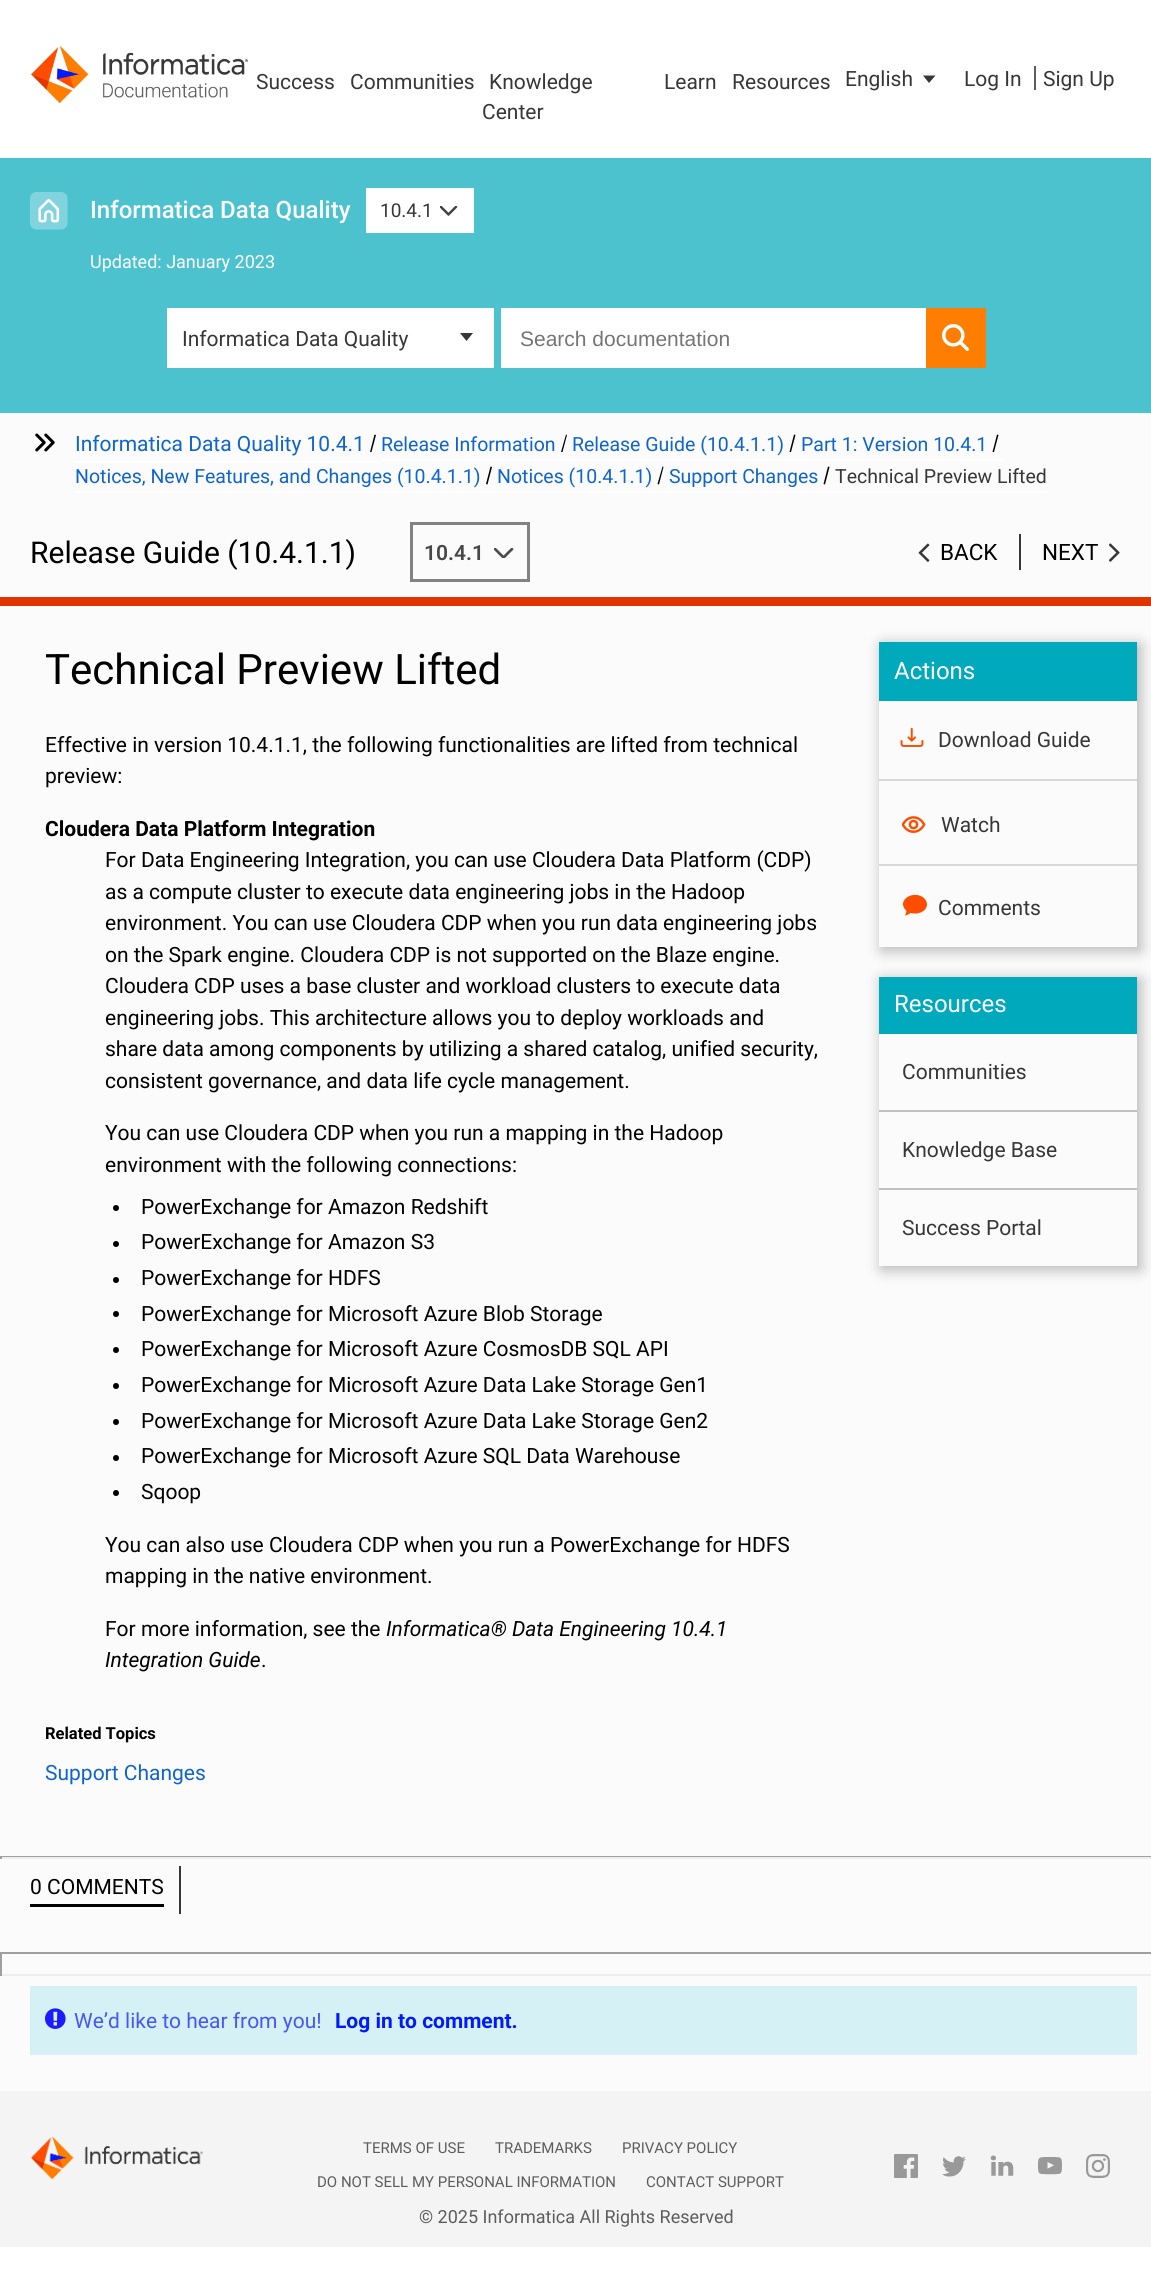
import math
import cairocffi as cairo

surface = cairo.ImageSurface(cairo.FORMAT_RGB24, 1151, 2284)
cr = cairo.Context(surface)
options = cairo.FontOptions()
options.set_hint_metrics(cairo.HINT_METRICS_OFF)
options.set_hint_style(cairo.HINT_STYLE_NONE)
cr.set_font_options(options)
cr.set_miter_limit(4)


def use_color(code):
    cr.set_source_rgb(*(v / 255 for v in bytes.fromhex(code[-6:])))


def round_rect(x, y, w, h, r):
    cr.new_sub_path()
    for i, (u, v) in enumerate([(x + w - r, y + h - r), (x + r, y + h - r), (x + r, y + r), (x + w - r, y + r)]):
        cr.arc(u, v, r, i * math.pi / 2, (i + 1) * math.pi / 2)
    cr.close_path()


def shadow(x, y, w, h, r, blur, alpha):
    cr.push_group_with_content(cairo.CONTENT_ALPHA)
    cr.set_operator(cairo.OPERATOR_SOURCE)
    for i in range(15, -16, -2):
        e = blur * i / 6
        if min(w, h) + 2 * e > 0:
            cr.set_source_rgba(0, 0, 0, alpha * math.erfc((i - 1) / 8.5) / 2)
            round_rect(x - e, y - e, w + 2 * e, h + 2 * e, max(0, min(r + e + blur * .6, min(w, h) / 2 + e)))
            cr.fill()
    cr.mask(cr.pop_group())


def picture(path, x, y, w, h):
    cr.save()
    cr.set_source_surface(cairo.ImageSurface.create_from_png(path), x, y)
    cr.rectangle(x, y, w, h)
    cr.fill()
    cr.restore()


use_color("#ffffff")
cr.paint()
picture("img1.png", 31, 45, 217, 59)
cr.select_font_face("Roboto")
cr.set_font_size(21)
use_color("#373737")
cr.move_to(256, 89)
cr.show_text("Success")
cr.move_to(350, 89)
cr.show_text("Communities")
cr.move_to(489, 89)
cr.show_text("Knowledge")
cr.move_to(482, 119)
cr.show_text("Center")
cr.move_to(664, 89)
cr.show_text("Learn")
cr.move_to(732, 89)
cr.show_text("Resources")
cr.move_to(845, 86)
cr.show_text("English")
cr.new_path()
cr.move_to(935.5, 75.5)
cr.line_to(929, 83)
cr.line_to(923, 75.5)
cr.close_path()
cr.fill()
cr.move_to(964, 86)
cr.show_text("Log In")
use_color("#5d5d5d")
cr.rectangle(1034, 66, 2, 24)
cr.fill()
use_color("#373737")
cr.move_to(1043, 86)
cr.show_text("Sign Up")
use_color("#4dc2cf")
cr.rectangle(0, 158, 1151, 255)
cr.fill()
picture("img2.png", 30, 192, 38, 38)
cr.select_font_face("Roboto Medium")
cr.set_font_size(24)
use_color("#ffffff")
cr.move_to(90, 218)
cr.show_text("Informatica Data Quality")
cr.rectangle(366, 188, 108, 45)
cr.fill()
cr.select_font_face("Roboto")
cr.set_font_size(19)
use_color("#373737")
cr.move_to(380, 217)
cr.show_text("10.4.1")
picture("img3.png", 440, 206, 18, 10)
cr.set_font_size(18)
use_color("#ffffff")
cr.move_to(90, 268)
cr.show_text("Updated: January 2023")
cr.rectangle(167, 308, 327, 60)
cr.fill()
cr.set_font_size(21)
use_color("#373737")
cr.move_to(182, 346)
cr.show_text("Informatica Data Quality")
cr.new_path()
cr.move_to(473, 333)
cr.line_to(466.5, 341)
cr.line_to(460, 333)
cr.close_path()
cr.fill()
use_color("#ffffff")
cr.rectangle(501, 308, 425, 60)
cr.fill()
cr.select_font_face("Liberation Sans")
use_color("#757575")
cr.move_to(520, 346)
cr.show_text("Search documentation")
use_color("#ff7d00")
cr.rectangle(926, 308, 60, 60)
cr.fill()
picture("img4.png", 942, 324, 27, 27)
use_color("#fbfbfb")
cr.rectangle(0, 413, 1151, 1678)
cr.fill()
picture("img5.png", 35, 433, 20, 19)
use_color("#ffffff")
cr.rectangle(75, 461, 306, 2)
cr.fill()
cr.select_font_face("Roboto")
use_color("#0f64cd")
cr.move_to(75, 451)
cr.show_text("Informatica Data Quality 10.4.1")
use_color("#000000")
cr.new_path()
cr.move_to(374.5, 434.5)
cr.line_to(376, 435)
cr.line_to(371.5, 452)
cr.line_to(370, 452)
cr.close_path()
cr.fill()
use_color("#ffffff")
cr.rectangle(381, 459, 623, 2)
cr.fill()
cr.set_font_size(19.5)
use_color("#0f64cd")
cr.move_to(381, 451)
cr.show_text("Release Information")
use_color("#000000")
cr.new_path()
cr.move_to(566, 434.5)
cr.line_to(567, 435)
cr.line_to(562.5, 452)
cr.line_to(561, 452)
cr.close_path()
cr.fill()
use_color("#0f64cd")
cr.move_to(572, 451)
cr.show_text("Release Guide (10.4.1.1)")
use_color("#000000")
cr.new_path()
cr.move_to(794, 434.5)
cr.line_to(795.5, 435)
cr.line_to(791, 452)
cr.line_to(789.5, 452)
cr.close_path()
cr.fill()
use_color("#0f64cd")
cr.move_to(801, 451)
cr.show_text("Part 1: Version 10.4.1")
use_color("#000000")
cr.new_path()
cr.move_to(997, 434.5)
cr.line_to(998.5, 435)
cr.line_to(994, 452)
cr.line_to(992.5, 452)
cr.close_path()
cr.fill()
use_color("#ffffff")
cr.rectangle(75, 491, 972, 2)
cr.fill()
use_color("#0f64cd")
cr.move_to(75, 483)
cr.show_text("Notices, New Features, and Changes (10.4.1.1)")
use_color("#000000")
cr.new_path()
cr.move_to(490.5, 466.5)
cr.line_to(492, 467)
cr.line_to(487.5, 484.5)
cr.line_to(486, 484)
cr.close_path()
cr.fill()
use_color("#0f64cd")
cr.move_to(497, 483)
cr.show_text("Notices (10.4.1.1)")
use_color("#000000")
cr.new_path()
cr.move_to(662.5, 466.5)
cr.line_to(663.5, 467)
cr.line_to(659, 484.5)
cr.line_to(657.5, 484)
cr.close_path()
cr.fill()
use_color("#0f64cd")
cr.move_to(669, 483)
cr.show_text("Support Changes")
use_color("#000000")
cr.new_path()
cr.move_to(828, 466.5)
cr.line_to(829.5, 467)
cr.line_to(825, 484.5)
cr.line_to(823.5, 484)
cr.close_path()
cr.fill()
use_color("#373737")
cr.move_to(835, 483)
cr.show_text("Technical Preview Lifted")
cr.set_font_size(30)
use_color("#000000")
cr.move_to(30, 563)
cr.show_text("Release Guide (10.4.1.1)")
cr.rectangle(411.5, 523.5, 117, 57)
use_color("#828282")
cr.set_line_width(3)
cr.stroke()
cr.select_font_face("Roboto SemiBold")
cr.set_font_size(21)
use_color("#484848")
cr.move_to(424, 560)
cr.show_text("10.4.1")
picture("img6.png", 494, 548, 20, 10)
picture("img7.png", 918, 543, 12, 19)
cr.select_font_face("Roboto")
cr.set_font_size(22.5)
use_color("#000000")
cr.move_to(940, 560)
cr.show_text("BACK")
use_color("#373737")
cr.rectangle(1019, 534, 2, 36)
cr.fill()
use_color("#000000")
cr.move_to(1042, 560)
cr.show_text("NEXT")
picture("img8.png", 1109, 543, 11, 19)
use_color("#e23400")
cr.rectangle(0, 597, 1151, 9)
cr.fill()
cr.set_font_size(42)
use_color("#000000")
cr.move_to(45, 684)
cr.show_text("Technical Preview Lifted")
cr.set_font_size(21)
cr.move_to(45, 752)
cr.show_text("Effective in version 10.4.1.1, the following functionalities are lifted from technical")
cr.move_to(45, 783)
cr.show_text("preview:")
cr.select_font_face("Roboto", cairo.FONT_SLANT_NORMAL, cairo.FONT_WEIGHT_BOLD)
cr.move_to(45, 836)
cr.show_text("Cloudera Data Platform Integration")
cr.select_font_face("Roboto")
cr.move_to(105, 867)
cr.show_text("For Data Engineering Integration, you can use Cloudera Data Platform (CDP)")
cr.move_to(105, 899)
cr.show_text("as a compute cluster to execute data engineering jobs in the Hadoop")
cr.move_to(105, 930)
cr.show_text("environment. You can use Cloudera CDP when you run data engineering jobs")
cr.move_to(105, 962)
cr.show_text("on the Spark engine. Cloudera CDP is not supported on the Blaze engine.")
cr.move_to(105, 993)
cr.show_text("Cloudera CDP uses a base cluster and workload clusters to execute data")
cr.move_to(105, 1025)
cr.show_text("engineering jobs. This architecture allows you to deploy workloads and")
cr.move_to(105, 1056)
cr.show_text("share data among components by utilizing a shared catalog, unified security,")
cr.move_to(105, 1088)
cr.show_text("consistent governance, and data life cycle management.")
cr.move_to(105, 1140)
cr.show_text("You can use Cloudera CDP when you run a mapping in the Hadoop")
cr.move_to(105, 1172)
cr.show_text("environment with the following connections:")
cr.new_path()
cr.arc(116, 1208, 3, 0, 2 * math.pi)
cr.fill()
cr.move_to(141, 1214)
cr.show_text("PowerExchange for Amazon Redshift")
cr.new_path()
cr.arc(116, 1244, 3, 0, 2 * math.pi)
cr.fill()
cr.move_to(141, 1249)
cr.show_text("PowerExchange for Amazon S3")
cr.new_path()
cr.arc(116, 1280, 3, 0, 2 * math.pi)
cr.fill()
cr.move_to(141, 1285)
cr.show_text("PowerExchange for HDFS")
cr.new_path()
cr.arc(116, 1314, 3, 0, 2 * math.pi)
cr.fill()
cr.move_to(141, 1321)
cr.show_text("PowerExchange for Microsoft Azure Blob Storage")
cr.new_path()
cr.arc(116, 1350, 3, 0, 2 * math.pi)
cr.fill()
cr.move_to(141, 1356)
cr.show_text("PowerExchange for Microsoft Azure CosmosDB SQL API")
cr.new_path()
cr.arc(116, 1386, 3, 0, 2 * math.pi)
cr.fill()
cr.move_to(141, 1392)
cr.show_text("PowerExchange for Microsoft Azure Data Lake Storage Gen1")
cr.new_path()
cr.arc(116, 1422, 3, 0, 2 * math.pi)
cr.fill()
cr.move_to(141, 1428)
cr.show_text("PowerExchange for Microsoft Azure Data Lake Storage Gen2")
cr.new_path()
cr.arc(116, 1458, 3, 0, 2 * math.pi)
cr.fill()
cr.move_to(141, 1463)
cr.show_text("PowerExchange for Microsoft Azure SQL Data Warehouse")
cr.new_path()
cr.arc(116, 1493, 3, 0, 2 * math.pi)
cr.fill()
cr.move_to(141, 1499)
cr.show_text("Sqoop")
cr.move_to(105, 1552)
cr.show_text("You can also use Cloudera CDP when you run a PowerExchange for HDFS")
cr.move_to(105, 1583)
cr.show_text("mapping in the native environment.")
cr.move_to(105, 1636)
cr.show_text("For more information, see the")
cr.select_font_face("Roboto", cairo.FONT_SLANT_ITALIC)
cr.move_to(386, 1636)
cr.show_text("Informatica® Data Engineering 10.4.1")
cr.move_to(105, 1667)
cr.show_text("Integration Guide")
cr.select_font_face("Roboto")
cr.move_to(261, 1667)
cr.show_text(".")
cr.select_font_face("Roboto", cairo.FONT_SLANT_NORMAL, cairo.FONT_WEIGHT_BOLD)
cr.set_font_size(16.5)
cr.move_to(45, 1739)
cr.show_text("Related Topics")
cr.select_font_face("Roboto")
cr.set_font_size(21)
use_color("#0f64cd")
cr.move_to(45, 1780)
cr.show_text("Support Changes")
cr.save()
cr.set_fill_rule(cairo.FILL_RULE_EVEN_ODD)
cr.new_path()
cr.move_to(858, 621)
cr.line_to(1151, 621)
cr.line_to(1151, 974)
cr.line_to(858, 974)
cr.close_path()
cr.move_to(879, 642)
cr.line_to(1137, 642)
cr.line_to(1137, 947)
cr.line_to(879, 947)
cr.close_path()
cr.clip()
use_color("#000000")
shadow(882, 645, 258, 305, 0, 7.5, 0.3)
cr.restore()
use_color("#00a9bb")
cr.rectangle(879, 642, 258, 59)
cr.fill()
cr.set_font_size(24)
use_color("#ffffff")
cr.move_to(894, 679)
cr.show_text("Actions")
use_color("#d8d8d8")
cr.rectangle(879, 779, 258, 2)
cr.fill()
picture("img9.png", 900, 727, 24, 20)
cr.set_font_size(21)
use_color("#373737")
cr.move_to(938, 747)
cr.show_text("Download Guide")
use_color("#d8d8d8")
cr.rectangle(879, 864, 258, 2)
cr.fill()
picture("img10.png", 902, 816, 24, 17)
use_color("#373737")
cr.move_to(941, 832)
cr.show_text("Watch")
picture("img11.png", 903, 894, 24, 22)
cr.move_to(938, 915)
cr.show_text("Comments")
cr.save()
cr.set_fill_rule(cairo.FILL_RULE_EVEN_ODD)
cr.new_path()
cr.move_to(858, 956)
cr.line_to(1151, 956)
cr.line_to(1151, 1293)
cr.line_to(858, 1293)
cr.close_path()
cr.move_to(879, 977)
cr.line_to(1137, 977)
cr.line_to(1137, 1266)
cr.line_to(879, 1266)
cr.close_path()
cr.clip()
use_color("#000000")
shadow(882, 980, 258, 289, 0, 7.5, 0.3)
cr.restore()
use_color("#00a9bb")
cr.rectangle(879, 977, 258, 57)
cr.fill()
cr.set_font_size(24)
use_color("#ffffff")
cr.move_to(894, 1012)
cr.show_text("Resources")
use_color("#c1c1c1")
cr.rectangle(879, 1110, 258, 2)
cr.fill()
cr.set_font_size(21)
use_color("#373737")
cr.move_to(902, 1079)
cr.show_text("Communities")
use_color("#c1c1c1")
cr.rectangle(879, 1188, 258, 2)
cr.fill()
use_color("#373737")
cr.move_to(902, 1157)
cr.show_text("Knowledge Base")
cr.move_to(902, 1235)
cr.show_text("Success Portal")
use_color("#9f9f9f")
cr.rectangle(0, 1856, 1151, 1)
cr.fill()
use_color("#eeeeee")
cr.rectangle(0, 1857, 1151, 2)
cr.fill()
use_color("#9f9f9f")
cr.rectangle(0, 1856, 2, 3)
cr.fill()
use_color("#000000")
cr.rectangle(30, 1904, 134, 3)
cr.fill()
cr.move_to(30, 1894)
cr.show_text("0 COMMENTS")
use_color("#373737")
cr.rectangle(179, 1866, 2, 48)
cr.fill()
use_color("#9f9f9f")
cr.rectangle(0, 1952, 1151, 2)
cr.fill()
use_color("#eeeeee")
cr.rectangle(0, 1974, 1151, 2)
cr.fill()
use_color("#9f9f9f")
cr.rectangle(0, 1952, 2, 24)
cr.fill()
use_color("#d5f1f5")
cr.rectangle(30, 1986, 1107, 69)
cr.fill()
picture("img12.png", 45, 2008, 21, 21)
use_color("#4557f9")
cr.move_to(74, 2028)
cr.show_text("We’d like to hear from you!")
cr.select_font_face("Roboto", cairo.FONT_SLANT_NORMAL, cairo.FONT_WEIGHT_BOLD)
use_color("#001aff")
cr.move_to(335, 2028)
cr.show_text("Log in to comment.")
use_color("#f4f4f4")
cr.rectangle(0, 2091, 1151, 156)
cr.fill()
picture("img13.png", 31, 2136, 172, 44)
cr.select_font_face("Roboto")
cr.set_font_size(15)
use_color("#5d5d5d")
cr.move_to(363, 2153)
cr.show_text("TERMS OF USE")
cr.move_to(495, 2153)
cr.show_text("TRADEMARKS")
cr.move_to(622, 2153)
cr.show_text("PRIVACY POLICY")
cr.move_to(317, 2187)
cr.show_text("DO NOT SELL MY PERSONAL INFORMATION")
cr.move_to(646, 2187)
cr.show_text("CONTACT SUPPORT")
picture("img14.png", 894, 2154, 24, 24)
picture("img15.png", 942, 2156, 24, 21)
picture("img16.png", 990, 2155, 24, 21)
picture("img17.png", 1038, 2157, 24, 18)
picture("img18.png", 1086, 2154, 24, 24)
cr.set_font_size(18)
cr.move_to(419, 2223)
cr.show_text("© 2025 Informatica All Rights Reserved")
surface.write_to_png("result.png")
